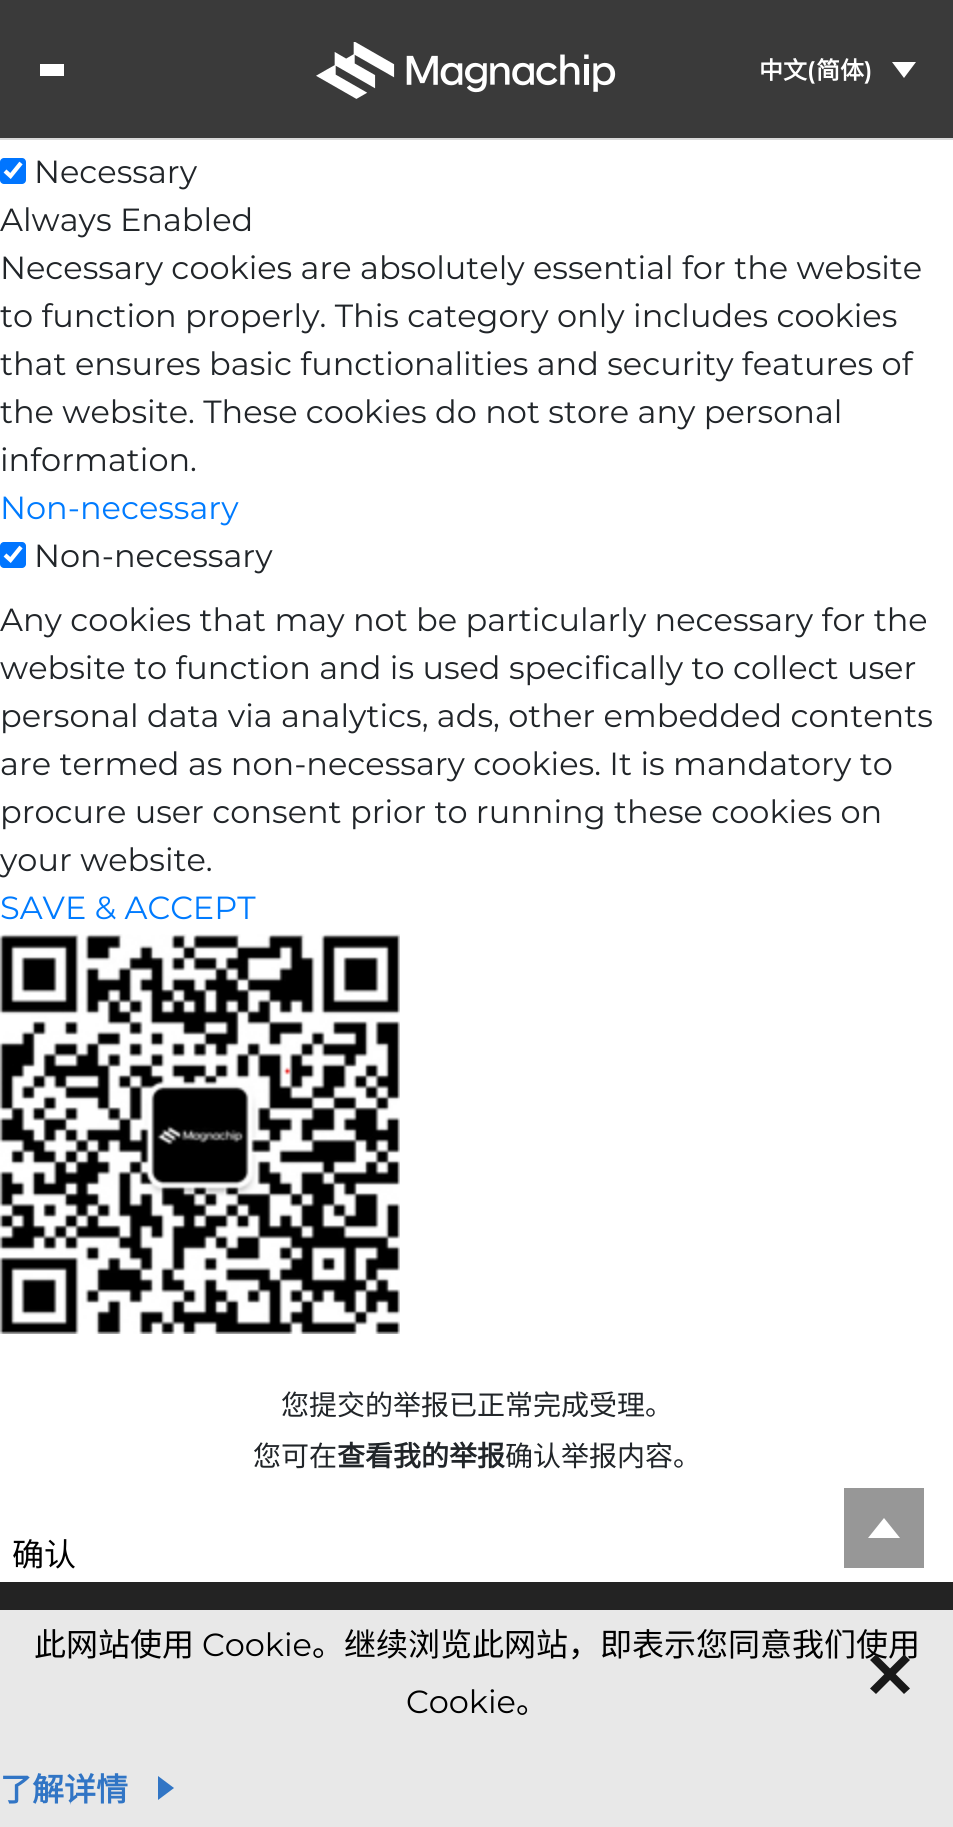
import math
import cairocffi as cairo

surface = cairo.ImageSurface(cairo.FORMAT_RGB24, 953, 1827)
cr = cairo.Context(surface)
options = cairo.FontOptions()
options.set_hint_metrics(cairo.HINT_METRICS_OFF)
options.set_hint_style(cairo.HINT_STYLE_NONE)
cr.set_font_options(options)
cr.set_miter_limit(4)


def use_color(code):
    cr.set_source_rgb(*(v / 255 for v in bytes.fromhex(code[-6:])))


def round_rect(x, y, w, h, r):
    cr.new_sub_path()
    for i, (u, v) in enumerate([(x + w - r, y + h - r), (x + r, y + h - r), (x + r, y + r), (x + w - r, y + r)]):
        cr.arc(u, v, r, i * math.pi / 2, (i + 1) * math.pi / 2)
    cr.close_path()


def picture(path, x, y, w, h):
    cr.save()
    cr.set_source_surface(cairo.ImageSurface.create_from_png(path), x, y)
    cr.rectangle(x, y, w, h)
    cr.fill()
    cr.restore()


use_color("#ffffff")
cr.paint()
cr.set_source_rgba(0.094, 0.094, 0.094, 0.85)
cr.rectangle(0, 0, 953, 138)
cr.fill()
use_color("#d8d8d8")
cr.rectangle(0, 138, 953, 2)
cr.fill()
use_color("#ffffff")
cr.rectangle(40, 64, 24, 12)
cr.fill()
picture("img1.png", 316, 42, 300, 57)
cr.select_font_face("Noto Sans CJK SC", cairo.FONT_SLANT_NORMAL, cairo.FONT_WEIGHT_BOLD)
cr.set_font_size(24)
cr.move_to(759, 79)
cr.show_text("中文")
cr.select_font_face("Montserrat SemiBold")
cr.move_to(807, 79)
cr.show_text("(")
cr.select_font_face("Noto Sans CJK SC", cairo.FONT_SLANT_NORMAL, cairo.FONT_WEIGHT_BOLD)
cr.move_to(816, 79)
cr.show_text("简体")
cr.select_font_face("Montserrat SemiBold")
cr.move_to(864, 79)
cr.show_text(")")
cr.new_path()
cr.move_to(892, 62)
cr.line_to(916, 62)
cr.line_to(904, 78)
cr.close_path()
cr.fill()
use_color("#0075ff")
round_rect(0, 158, 26, 26, 4)
cr.fill()
cr.new_path()
cr.move_to(5, 171)
cr.line_to(10.5, 176)
cr.line_to(21, 163)
use_color("#ffffff")
cr.set_line_width(4.2)
cr.stroke()
cr.select_font_face("Montserrat")
cr.set_font_size(32)
use_color("#212529")
cr.move_to(34, 183)
cr.show_text("Necessary")
cr.move_to(0, 231)
cr.show_text("Always Enabled")
cr.move_to(0, 279)
cr.show_text("Necessary cookies are absolutely essential for the website")
cr.move_to(0, 327)
cr.show_text("to function properly. This category only includes cookies")
cr.move_to(0, 375)
cr.show_text("that ensures basic functionalities and security features of")
cr.move_to(0, 423)
cr.show_text("the website. These cookies do not store any personal")
cr.move_to(0, 471)
cr.show_text("information.")
use_color("#007bff")
cr.move_to(0, 519)
cr.show_text("Non-necessary")
use_color("#0075ff")
round_rect(0, 542, 26, 26, 4)
cr.fill()
cr.new_path()
cr.move_to(5, 555)
cr.line_to(10.5, 560)
cr.line_to(21, 547)
use_color("#ffffff")
cr.stroke()
use_color("#212529")
cr.move_to(34, 567)
cr.show_text("Non-necessary")
cr.move_to(0, 631)
cr.show_text("Any cookies that may not be particularly necessary for the")
cr.move_to(0, 679)
cr.show_text("website to function and is used specifically to collect user")
cr.move_to(0, 727)
cr.show_text("personal data via analytics, ads, other embedded contents")
cr.move_to(0, 775)
cr.show_text("are termed as non-necessary cookies. It is mandatory to")
cr.move_to(0, 823)
cr.show_text("procure user consent prior to running these cookies on")
cr.move_to(0, 871)
cr.show_text("your website.")
use_color("#007bff")
cr.move_to(0, 919)
cr.show_text("SAVE & ACCEPT")
picture("img2.png", 0, 934, 400, 400)
cr.select_font_face("Noto Sans CJK SC")
cr.set_font_size(28)
use_color("#212529")
cr.move_to(281, 1415)
cr.show_text("您提交的举报已正常完成受理。")
cr.move_to(253, 1466)
cr.show_text("您可在")
cr.select_font_face("Noto Sans CJK SC", cairo.FONT_SLANT_NORMAL, cairo.FONT_WEIGHT_BOLD)
cr.move_to(337, 1466)
cr.show_text("查看我的举报")
cr.select_font_face("Noto Sans CJK SC")
cr.move_to(505, 1466)
cr.show_text("确认举报内容。")
cr.set_font_size(32)
use_color("#000000")
cr.move_to(12, 1566)
cr.show_text("确认")
use_color("#979797")
cr.rectangle(844, 1488, 80, 80)
cr.fill()
use_color("#ffffff")
cr.new_path()
cr.move_to(900, 1538)
cr.line_to(868, 1538)
cr.line_to(884, 1518)
cr.close_path()
cr.fill()
use_color("#e8e8e8")
cr.rectangle(0, 1610, 953, 217)
cr.fill()
use_color("#000000")
cr.move_to(34, 1656)
cr.show_text("此网站使用")
cr.select_font_face("Montserrat")
cr.move_to(202, 1656)
cr.show_text("Cookie")
cr.select_font_face("Noto Sans CJK SC")
cr.move_to(312, 1656)
cr.show_text("。继续浏览此网站，即表示您同意我们使用")
cr.select_font_face("Montserrat")
cr.move_to(406, 1713)
cr.show_text("Cookie")
cr.select_font_face("Noto Sans CJK SC")
cr.move_to(516, 1713)
cr.show_text("。")
use_color("#181818")
cr.new_path()
cr.move_to(870, 1660)
cr.line_to(876, 1654.5)
cr.line_to(910, 1688.5)
cr.line_to(904, 1694)
cr.close_path()
cr.fill()
cr.new_path()
cr.move_to(904, 1654.5)
cr.line_to(910, 1660)
cr.line_to(876, 1694)
cr.line_to(870, 1688.5)
cr.close_path()
cr.fill()
cr.select_font_face("Noto Sans CJK SC", cairo.FONT_SLANT_NORMAL, cairo.FONT_WEIGHT_BOLD)
use_color("#3175c5")
cr.move_to(0, 1801)
cr.show_text("了解详情")
cr.new_path()
cr.move_to(158, 1800)
cr.line_to(158, 1776)
cr.line_to(174, 1788)
cr.close_path()
cr.fill()
use_color("#232323")
cr.rectangle(0, 1582, 953, 28)
cr.fill()
surface.write_to_png("result.png")
